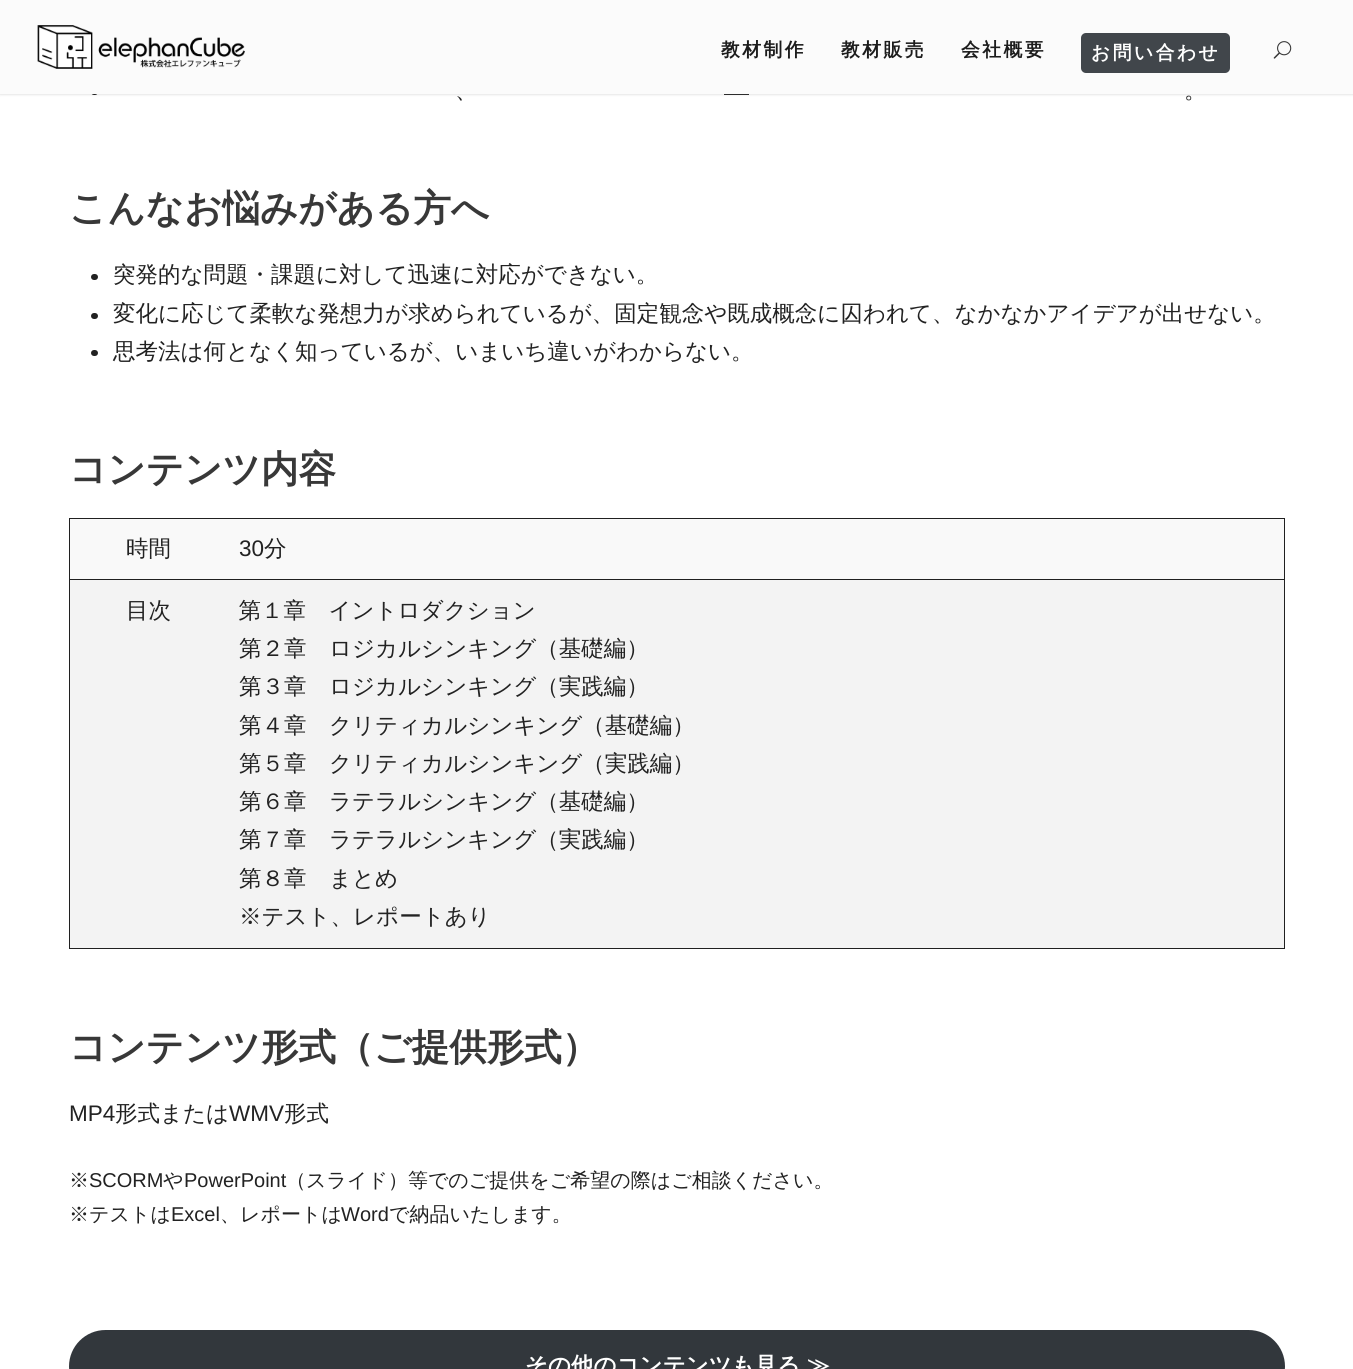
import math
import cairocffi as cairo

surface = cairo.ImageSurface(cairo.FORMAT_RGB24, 1353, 1369)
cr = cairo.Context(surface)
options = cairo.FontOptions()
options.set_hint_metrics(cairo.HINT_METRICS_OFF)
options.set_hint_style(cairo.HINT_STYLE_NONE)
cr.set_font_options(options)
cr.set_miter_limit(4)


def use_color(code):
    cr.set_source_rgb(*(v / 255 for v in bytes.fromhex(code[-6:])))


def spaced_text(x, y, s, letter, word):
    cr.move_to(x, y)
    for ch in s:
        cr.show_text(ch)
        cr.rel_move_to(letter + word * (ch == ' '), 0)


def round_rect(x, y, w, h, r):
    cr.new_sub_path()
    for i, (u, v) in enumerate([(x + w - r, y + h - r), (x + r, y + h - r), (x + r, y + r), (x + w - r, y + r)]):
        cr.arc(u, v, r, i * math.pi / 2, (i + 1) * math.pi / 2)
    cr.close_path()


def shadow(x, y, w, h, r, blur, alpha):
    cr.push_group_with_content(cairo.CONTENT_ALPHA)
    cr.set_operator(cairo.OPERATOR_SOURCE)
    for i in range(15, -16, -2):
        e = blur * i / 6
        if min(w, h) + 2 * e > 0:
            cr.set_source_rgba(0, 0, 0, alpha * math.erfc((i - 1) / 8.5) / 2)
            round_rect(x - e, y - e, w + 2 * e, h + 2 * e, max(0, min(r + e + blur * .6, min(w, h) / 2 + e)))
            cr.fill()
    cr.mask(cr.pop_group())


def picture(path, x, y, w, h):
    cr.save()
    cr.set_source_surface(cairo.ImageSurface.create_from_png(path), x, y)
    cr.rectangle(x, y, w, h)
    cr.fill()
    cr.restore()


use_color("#ffffff")
cr.paint()
use_color("#222222")
round_rect(91, 89, 7, 6, 3)
cr.fill()
use_color("#000000")
shadow(0, 1, 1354, 94, 0, 1, 0.1)
use_color("#fbfbfb")
cr.rectangle(0, 0, 1353, 94)
cr.fill()
picture("img1.png", 37, 25, 208, 44)
cr.select_font_face("WenQuanYi Zen Hei", cairo.FONT_SLANT_NORMAL, cairo.FONT_WEIGHT_BOLD)
cr.set_font_size(18.75)
use_color("#1c1c1c")
spaced_text(721, 56, "教材制作", 2.5, 0)
spaced_text(841, 56, "教材販売", 2.5, 0)
spaced_text(961, 56, "会社概要", 2.5, 0)
use_color("#41464b")
round_rect(1081, 33, 149, 40, 5)
cr.fill()
use_color("#ffffff")
spaced_text(1091, 59, "お問い合わせ", 2.5, 0)
use_color("#2d2d2d")
cr.rectangle(724, 94, 25, 1)
cr.fill()
picture("img2.png", 1273, 41, 19, 18)
cr.select_font_face("WenQuanYi Zen Hei Medium")
cr.set_font_size(22.5)
use_color("#222222")
cr.move_to(455, 98)
cr.show_text("、")
cr.move_to(1184, 98)
cr.show_text("。")
cr.select_font_face("WenQuanYi Zen Hei", cairo.FONT_SLANT_NORMAL, cairo.FONT_WEIGHT_BOLD)
cr.set_font_size(37.5)
use_color("#383838")
cr.move_to(69, 221)
cr.show_text("こんなお悩みがある方へ")
use_color("#222222")
round_rect(91, 274, 7, 6, 3)
cr.fill()
cr.select_font_face("WenQuanYi Zen Hei Medium")
cr.set_font_size(22.5)
cr.move_to(113, 282)
cr.show_text("突発的な問題・課題に対して迅速に対応ができない。")
round_rect(91, 313, 7, 6, 3)
cr.fill()
cr.move_to(113, 321)
cr.show_text("変化に応じて柔軟な発想力が求められているが、固定観念や既成概念に囚われて、なかなかアイデアが出せない。")
round_rect(91, 350, 7, 6, 3)
cr.fill()
cr.move_to(113, 359)
cr.show_text("思考法は何となく知っているが、いまいち違いがわからない。")
cr.select_font_face("WenQuanYi Zen Hei", cairo.FONT_SLANT_NORMAL, cairo.FONT_WEIGHT_BOLD)
cr.set_font_size(37.5)
use_color("#383838")
cr.move_to(69, 482)
cr.show_text("コンテンツ内容")
use_color("#f9f9f9")
cr.rectangle(70, 519, 1214, 60)
cr.fill()
use_color("#202020")
cr.rectangle(69, 518, 1216, 1)
cr.fill()
cr.rectangle(69, 579, 1216, 1)
cr.fill()
cr.rectangle(1284, 579, 1, 370)
cr.fill()
cr.rectangle(1284, 518, 1, 62)
cr.fill()
cr.rectangle(69, 948, 1216, 1)
cr.fill()
cr.rectangle(69, 579, 1, 370)
cr.fill()
cr.rectangle(69, 518, 1, 62)
cr.fill()
cr.select_font_face("WenQuanYi Zen Hei Medium")
cr.set_font_size(22.5)
use_color("#222222")
cr.move_to(126, 556)
cr.show_text("時間")
cr.select_font_face("Liberation Sans")
cr.move_to(239, 556)
cr.show_text("30")
cr.select_font_face("WenQuanYi Zen Hei Medium")
cr.move_to(264, 556)
cr.show_text("分")
use_color("#f3f3f3")
cr.rectangle(70, 580, 1214, 368)
cr.fill()
use_color("#222222")
cr.move_to(126, 618)
cr.show_text("目次　　　第１章　イントロダクション")
cr.move_to(239, 656)
cr.show_text("第２章　ロジカルシンキング（基礎編）")
cr.move_to(239, 694)
cr.show_text("第３章　ロジカルシンキング（実践編）")
cr.move_to(239, 733)
cr.show_text("第４章　クリティカルシンキング（基礎編）")
cr.move_to(239, 771)
cr.show_text("第５章　クリティカルシンキング（実践編）")
cr.move_to(239, 809)
cr.show_text("第６章　ラテラルシンキング（基礎編）")
cr.move_to(239, 847)
cr.show_text("第７章　ラテラルシンキング（実践編）")
cr.move_to(239, 886)
cr.show_text("第８章　まとめ")
cr.move_to(239, 924)
cr.show_text("※テスト、レポートあり")
cr.select_font_face("WenQuanYi Zen Hei", cairo.FONT_SLANT_NORMAL, cairo.FONT_WEIGHT_BOLD)
cr.set_font_size(37.5)
use_color("#383838")
cr.move_to(69, 1060)
cr.show_text("コンテンツ形式（ご提供形式）")
cr.select_font_face("Liberation Sans")
cr.set_font_size(22.5)
use_color("#222222")
cr.move_to(69, 1121)
cr.show_text("MP4")
cr.select_font_face("WenQuanYi Zen Hei Medium")
cr.move_to(115, 1121)
cr.show_text("形式または")
cr.select_font_face("Liberation Sans")
cr.move_to(229, 1121)
cr.show_text("WMV")
cr.select_font_face("WenQuanYi Zen Hei Medium")
cr.move_to(284, 1121)
cr.show_text("形式")
cr.set_font_size(20)
cr.move_to(69, 1187)
cr.show_text("※")
cr.select_font_face("Liberation Sans")
cr.move_to(89, 1187)
cr.show_text("SCORM")
cr.select_font_face("WenQuanYi Zen Hei Medium")
cr.move_to(163, 1187)
cr.show_text("や")
cr.select_font_face("Liberation Sans")
cr.move_to(184, 1187)
cr.show_text("PowerPoint")
cr.select_font_face("WenQuanYi Zen Hei Medium")
cr.move_to(286, 1187)
cr.show_text("（スライド）等でのご提供をご希望の際はご相談ください。")
cr.move_to(69, 1221)
cr.show_text("※テストは")
cr.select_font_face("Liberation Sans")
cr.move_to(171, 1221)
cr.show_text("Excel")
cr.select_font_face("WenQuanYi Zen Hei Medium")
cr.move_to(220, 1221)
cr.show_text("、レポートは")
cr.select_font_face("Liberation Sans")
cr.move_to(341, 1221)
cr.show_text("Word")
cr.select_font_face("WenQuanYi Zen Hei Medium")
cr.move_to(389, 1221)
cr.show_text("で納品いたします。")
use_color("#32373c")
round_rect(69, 1330, 1216, 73, 36.5)
cr.fill()
cr.select_font_face("WenQuanYi Zen Hei", cairo.FONT_SLANT_NORMAL, cairo.FONT_WEIGHT_BOLD)
cr.set_font_size(22.5)
use_color("#ffffff")
cr.move_to(525, 1373)
cr.show_text("その他のコンテンツも見る ≫")
surface.write_to_png("result.png")
